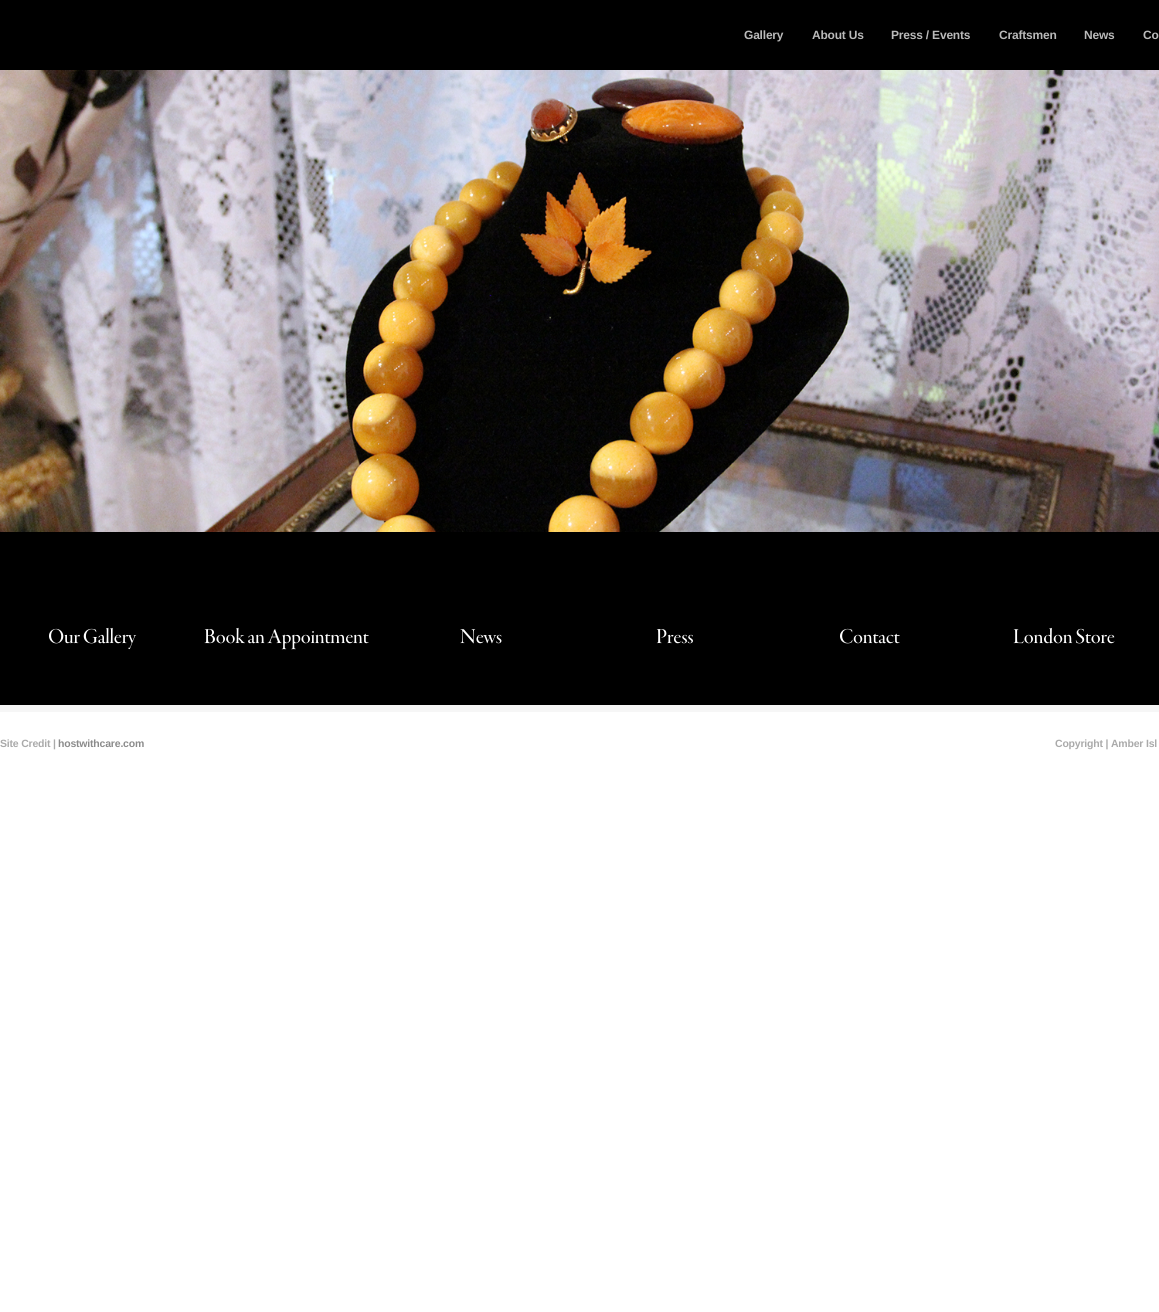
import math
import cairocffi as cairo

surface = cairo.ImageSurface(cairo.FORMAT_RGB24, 1159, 1312)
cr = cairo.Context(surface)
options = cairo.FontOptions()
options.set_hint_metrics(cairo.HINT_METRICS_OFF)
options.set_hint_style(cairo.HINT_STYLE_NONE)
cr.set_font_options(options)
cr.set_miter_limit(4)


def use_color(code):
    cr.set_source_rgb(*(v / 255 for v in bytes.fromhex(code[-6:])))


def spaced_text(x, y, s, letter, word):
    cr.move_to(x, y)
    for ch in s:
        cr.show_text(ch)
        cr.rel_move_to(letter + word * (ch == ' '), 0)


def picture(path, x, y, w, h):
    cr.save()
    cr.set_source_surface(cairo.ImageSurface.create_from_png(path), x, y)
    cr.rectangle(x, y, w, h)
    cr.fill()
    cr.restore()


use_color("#ffffff")
cr.paint()
use_color("#000000")
cr.rectangle(0, 0, 1159, 70)
cr.fill()
cr.select_font_face("Liberation Sans", cairo.FONT_SLANT_NORMAL, cairo.FONT_WEIGHT_BOLD)
cr.set_font_size(12)
use_color("#bababa")
spaced_text(744, 39, "Gallery", -0.2, 0)
spaced_text(812, 39, "About Us", -0.2, 0)
spaced_text(891, 39, "Press / Events", -0.2, 0)
spaced_text(999, 39, "Craftsmen", -0.2, 0)
spaced_text(1084, 39, "News", -0.2, 0)
spaced_text(1143, 39, "Co", -0.2, 0)
use_color("#000000")
cr.rectangle(0, 532, 1159, 173)
cr.fill()
picture("img1.png", 0, 70, 1159, 462)
use_color("#f6f6f6")
cr.rectangle(0, 705, 1159, 7)
cr.fill()
cr.select_font_face("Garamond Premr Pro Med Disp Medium")
cr.set_font_size(22)
use_color("#ffffff")
spaced_text(48, 643, "Our Gallery", -0.2, 0)
spaced_text(204, 643, "Book an Appointment", -0.2, 0)
spaced_text(460, 643, "News", -0.2, 0)
spaced_text(656, 643, "Press", -0.2, 0)
spaced_text(839, 643, "Contact", -0.2, 0)
spaced_text(1013, 643, "London Store", -0.2, 0)
cr.select_font_face("Liberation Sans", cairo.FONT_SLANT_NORMAL, cairo.FONT_WEIGHT_BOLD)
cr.set_font_size(10.5)
use_color("#aaaaaa")
spaced_text(0, 747, "Site Credit |", -0.2, 0)
use_color("#8b8b8b")
spaced_text(58, 747, "hostwithcare.com", -0.2, 0)
use_color("#aaaaaa")
spaced_text(1055, 747, "Copyright | Amber Isl", -0.2, 0)
surface.write_to_png("result.png")
